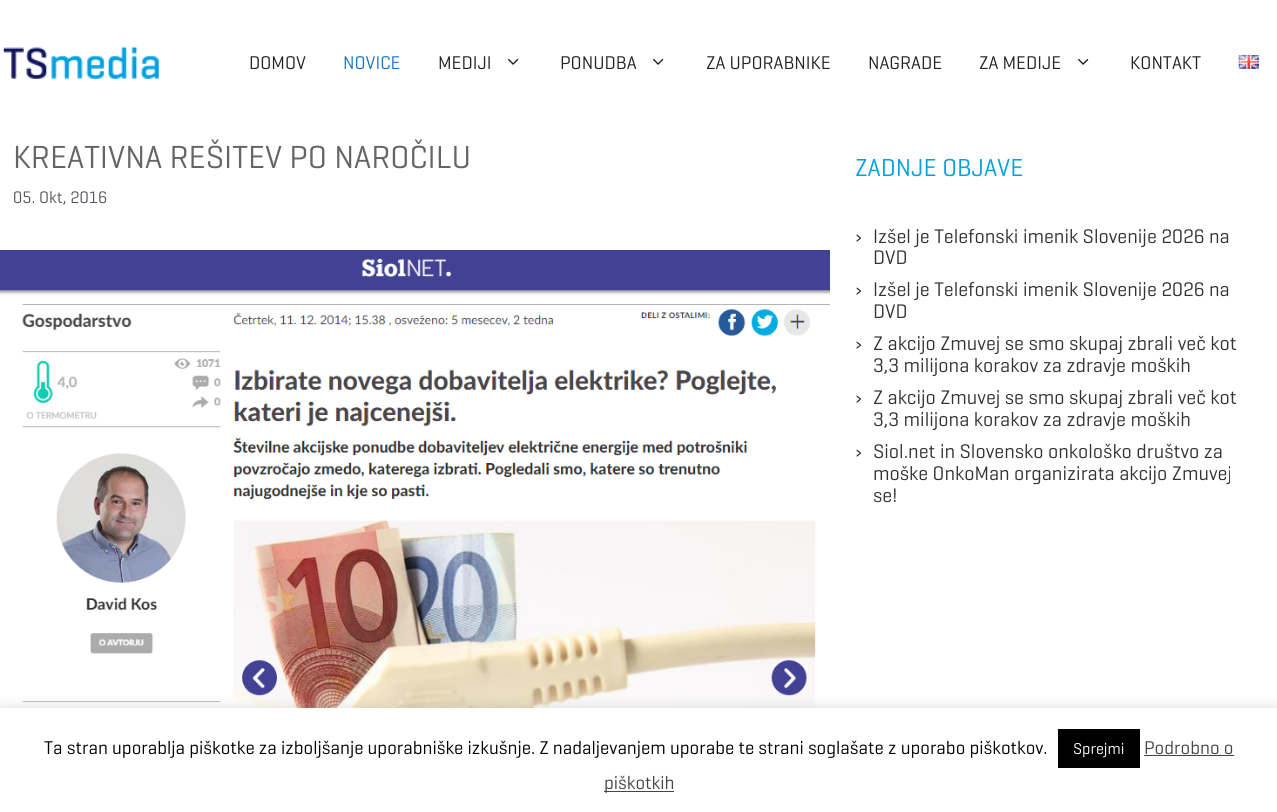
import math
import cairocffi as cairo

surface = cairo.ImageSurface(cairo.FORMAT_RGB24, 1277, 812)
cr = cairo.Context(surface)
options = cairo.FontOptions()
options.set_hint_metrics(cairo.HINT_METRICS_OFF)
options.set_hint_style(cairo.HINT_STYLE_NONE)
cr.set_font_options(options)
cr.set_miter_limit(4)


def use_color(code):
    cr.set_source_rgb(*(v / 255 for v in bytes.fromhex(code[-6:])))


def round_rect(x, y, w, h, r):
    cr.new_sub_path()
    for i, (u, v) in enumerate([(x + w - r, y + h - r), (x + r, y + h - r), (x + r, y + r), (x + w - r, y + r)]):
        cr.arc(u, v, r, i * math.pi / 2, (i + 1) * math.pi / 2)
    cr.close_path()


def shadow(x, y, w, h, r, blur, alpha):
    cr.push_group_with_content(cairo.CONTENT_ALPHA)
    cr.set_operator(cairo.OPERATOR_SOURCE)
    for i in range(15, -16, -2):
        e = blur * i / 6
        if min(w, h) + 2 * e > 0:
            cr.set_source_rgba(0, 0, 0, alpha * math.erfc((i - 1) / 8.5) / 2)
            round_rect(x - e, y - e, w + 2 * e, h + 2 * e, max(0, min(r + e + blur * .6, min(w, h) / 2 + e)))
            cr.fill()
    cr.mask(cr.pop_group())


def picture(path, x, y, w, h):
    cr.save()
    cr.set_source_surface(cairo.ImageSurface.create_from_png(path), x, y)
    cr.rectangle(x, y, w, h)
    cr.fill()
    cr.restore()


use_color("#ffffff")
cr.paint()
picture("img1.png", 3, 47, 156, 32)
cr.select_font_face("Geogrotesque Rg")
cr.set_font_size(18.75)
use_color("#222222")
cr.move_to(249, 69)
cr.show_text("DOMOV")
use_color("#1e73be")
cr.move_to(343, 69)
cr.show_text("NOVICE")
use_color("#222222")
cr.move_to(438, 69)
cr.show_text("MEDIJI")
picture("img2.png", 508, 58, 11, 7)
cr.move_to(560, 69)
cr.show_text("PONUDBA")
picture("img2.png", 653, 58, 11, 7)
cr.move_to(706, 69)
cr.show_text("ZA UPORABNIKE")
cr.move_to(868, 69)
cr.show_text("NAGRADE")
cr.move_to(979, 69)
cr.show_text("ZA MEDIJE")
picture("img2.png", 1078, 58, 11, 7)
cr.move_to(1130, 69)
cr.show_text("KONTAKT")
picture("img3.png", 1238, 55, 21, 14)
cr.set_font_size(32.5)
use_color("#656565")
cr.move_to(13, 168)
cr.show_text("KREATIVNA REŠITEV PO NAROČILU")
cr.set_font_size(17)
use_color("#575760")
cr.move_to(13, 203)
cr.show_text("05. Okt, 2016")
picture("img4.png", 0, 250, 830, 458)
cr.set_font_size(25)
use_color("#00a1e4")
cr.move_to(855, 176)
cr.show_text("ZADNJE OBJAVE")
cr.set_font_size(20)
use_color("#222222")
cr.move_to(855, 243)
cr.show_text("›")
use_color("#333333")
cr.move_to(873, 243)
cr.show_text("Izšel je Telefonski imenik Slovenije 2026 na")
cr.move_to(873, 264)
cr.show_text("DVD")
use_color("#222222")
cr.move_to(855, 296)
cr.show_text("›")
use_color("#333333")
cr.move_to(873, 296)
cr.show_text("Izšel je Telefonski imenik Slovenije 2026 na")
cr.move_to(873, 318)
cr.show_text("DVD")
use_color("#222222")
cr.move_to(855, 350)
cr.show_text("›")
use_color("#333333")
cr.move_to(873, 350)
cr.show_text("Z akcijo Zmuvej se smo skupaj zbrali več kot")
cr.move_to(873, 372)
cr.show_text("3,3 milijona korakov za zdravje moških")
use_color("#222222")
cr.move_to(855, 404)
cr.show_text("›")
use_color("#333333")
cr.move_to(873, 404)
cr.show_text("Z akcijo Zmuvej se smo skupaj zbrali več kot")
cr.move_to(873, 426)
cr.show_text("3,3 milijona korakov za zdravje moških")
use_color("#222222")
cr.move_to(855, 458)
cr.show_text("›")
use_color("#333333")
cr.move_to(873, 458)
cr.show_text("Siol.net in Slovensko onkološko društvo za")
cr.move_to(873, 480)
cr.show_text("moške OnkoMan organizirata akcijo Zmuvej")
cr.move_to(873, 502)
cr.show_text("se!")
use_color("#acabab")
shadow(0, 706, 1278, 105, 0, 6, 0.3)
use_color("#ffffff")
cr.rectangle(0, 708, 1277, 104)
cr.fill()
cr.set_font_size(18.75)
use_color("#000000")
cr.move_to(44, 754)
cr.show_text("Ta stran uporablja piškotke za izboljšanje uporabniške izkušnje. Z nadaljevanjem uporabe te strani soglašate z uporabo piškotkov.")
cr.rectangle(1058, 729, 82, 39)
cr.fill()
cr.set_font_size(16)
use_color("#ffffff")
cr.move_to(1073, 754)
cr.show_text("Sprejmi")
cr.set_font_size(18.75)
use_color("#444444")
cr.move_to(1144, 754)
cr.show_text("Podrobno o")
cr.rectangle(1144, 755, 90, 1)
cr.fill()
cr.rectangle(604, 791, 70, 1)
cr.fill()
cr.move_to(604, 789)
cr.show_text("piškotkih")
surface.write_to_png("result.png")
